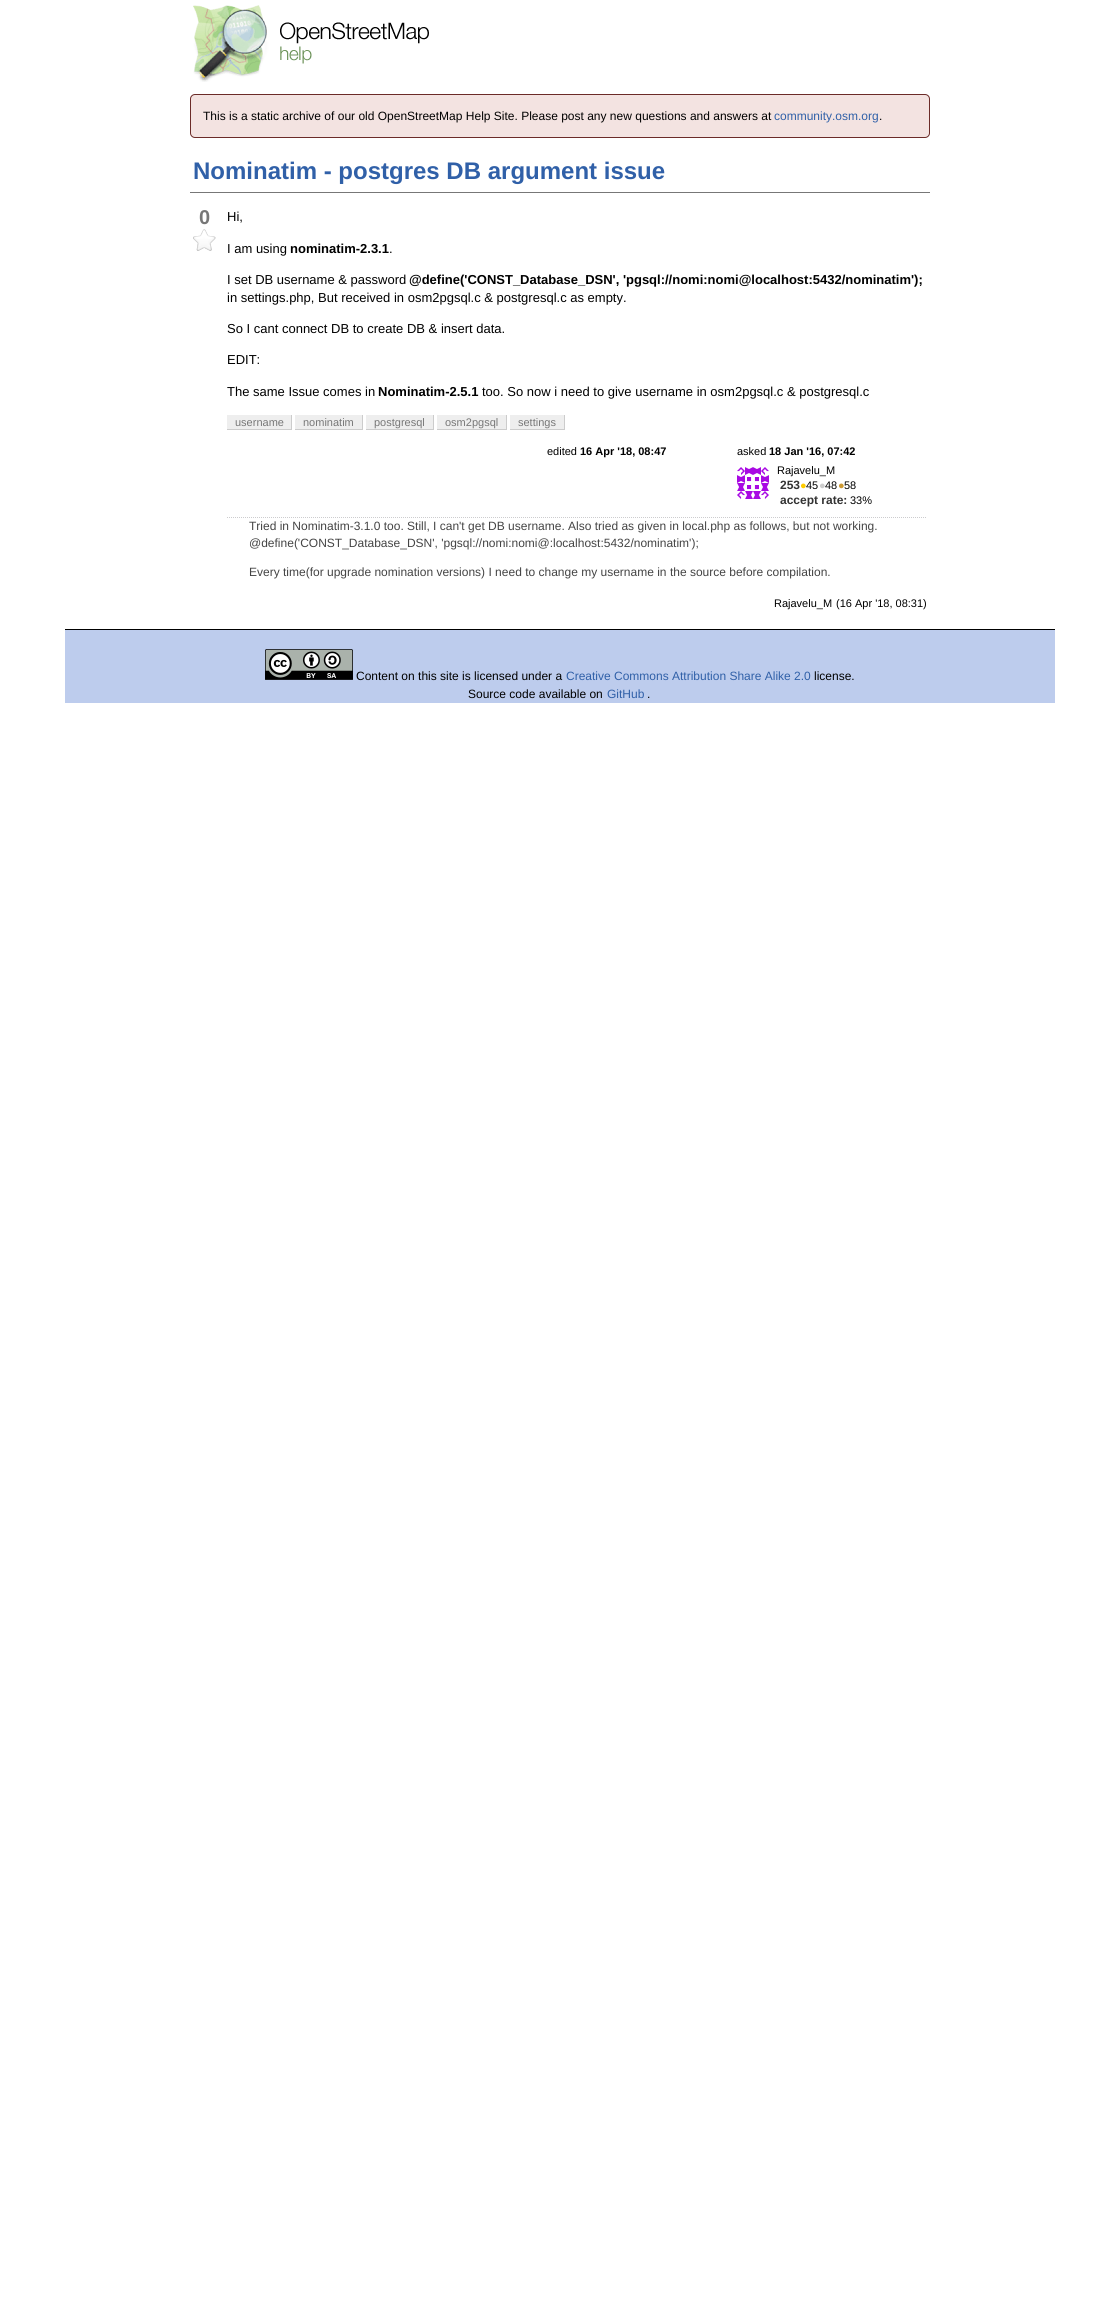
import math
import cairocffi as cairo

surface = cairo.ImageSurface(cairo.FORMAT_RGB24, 1119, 2308)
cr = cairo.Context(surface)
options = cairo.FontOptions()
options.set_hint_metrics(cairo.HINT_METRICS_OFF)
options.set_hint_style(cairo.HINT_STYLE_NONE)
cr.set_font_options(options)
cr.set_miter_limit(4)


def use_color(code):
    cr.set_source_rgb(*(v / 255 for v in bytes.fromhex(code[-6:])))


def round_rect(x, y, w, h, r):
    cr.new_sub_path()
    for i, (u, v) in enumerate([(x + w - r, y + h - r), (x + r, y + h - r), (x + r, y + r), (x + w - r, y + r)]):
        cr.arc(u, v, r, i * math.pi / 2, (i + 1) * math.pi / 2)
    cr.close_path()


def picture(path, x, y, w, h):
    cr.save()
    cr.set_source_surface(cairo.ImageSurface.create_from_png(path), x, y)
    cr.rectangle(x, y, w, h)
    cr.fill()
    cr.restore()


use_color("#ffffff")
cr.paint()
picture("img1.png", 193, 5, 236, 77)
use_color("#f3e3e1")
round_rect(190.5, 94.5, 739, 43, 4.5)
cr.fill_preserve()
use_color("#6b2b28")
cr.set_line_width(1)
cr.stroke()
cr.select_font_face("Liberation Sans")
cr.set_font_size(12)
use_color("#000000")
cr.move_to(203, 120)
cr.show_text("This is a static archive of our old OpenStreetMap Help Site. Please post any new questions and answers at")
use_color("#3060a8")
cr.move_to(774, 120)
cr.show_text("community.osm.org")
use_color("#000000")
cr.move_to(879, 120)
cr.show_text(".")
use_color("#777777")
cr.rectangle(190, 192, 740, 1)
cr.fill()
cr.select_font_face("Liberation Sans", cairo.FONT_SLANT_NORMAL, cairo.FONT_WEIGHT_BOLD)
cr.set_font_size(24)
use_color("#3060a8")
cr.move_to(193, 179)
cr.show_text("Nominatim - postgres DB argument issue")
cr.set_font_size(20)
use_color("#777777")
cr.move_to(199, 224)
cr.show_text("0")
picture("img2.png", 193, 229, 23, 22)
cr.select_font_face("Liberation Sans")
cr.set_font_size(13)
use_color("#000000")
cr.move_to(227, 221)
cr.show_text("Hi,")
cr.move_to(227, 253)
cr.show_text("I am using")
cr.select_font_face("Liberation Sans", cairo.FONT_SLANT_NORMAL, cairo.FONT_WEIGHT_BOLD)
cr.move_to(290, 253)
cr.show_text("nominatim-2.3.1")
cr.select_font_face("Liberation Sans")
cr.move_to(389, 253)
cr.show_text(".")
cr.move_to(227, 284)
cr.show_text("I set DB username & password")
cr.select_font_face("Liberation Sans", cairo.FONT_SLANT_NORMAL, cairo.FONT_WEIGHT_BOLD)
cr.move_to(409, 284)
cr.show_text("@define('CONST_Database_DSN', 'pgsql://nomi:nomi@localhost:5432/nominatim');")
cr.select_font_face("Liberation Sans")
cr.move_to(227, 302)
cr.show_text("in settings.php, But received in osm2pgsql.c & postgresql.c as empty.")
cr.move_to(227, 333)
cr.show_text("So I cant connect DB to create DB & insert data.")
cr.move_to(227, 364)
cr.show_text("EDIT:")
cr.move_to(227, 396)
cr.show_text("The same Issue comes in")
cr.select_font_face("Liberation Sans", cairo.FONT_SLANT_NORMAL, cairo.FONT_WEIGHT_BOLD)
cr.move_to(378, 396)
cr.show_text("Nominatim-2.5.1")
cr.select_font_face("Liberation Sans")
cr.move_to(482, 396)
cr.show_text("too. So now i need to give username in osm2pgsql.c & postgresql.c")
use_color("#eeeeee")
cr.rectangle(227, 415, 64, 14)
cr.fill()
cr.set_font_size(11)
use_color("#777777")
cr.move_to(235, 426)
cr.show_text("username")
use_color("#cccccc")
cr.rectangle(291, 415, 1, 15)
cr.fill()
cr.rectangle(227, 429, 65, 1)
cr.fill()
use_color("#eeeeee")
cr.rectangle(295, 415, 67, 14)
cr.fill()
use_color("#777777")
cr.move_to(303, 426)
cr.show_text("nominatim")
use_color("#cccccc")
cr.rectangle(362, 415, 1, 15)
cr.fill()
cr.rectangle(295, 429, 68, 1)
cr.fill()
use_color("#eeeeee")
cr.rectangle(366, 415, 67, 14)
cr.fill()
use_color("#777777")
cr.move_to(374, 426)
cr.show_text("postgresql")
use_color("#cccccc")
cr.rectangle(433, 415, 1, 15)
cr.fill()
cr.rectangle(366, 429, 68, 1)
cr.fill()
use_color("#eeeeee")
cr.rectangle(437, 415, 69, 14)
cr.fill()
use_color("#777777")
cr.move_to(445, 426)
cr.show_text("osm2pgsql")
use_color("#cccccc")
cr.rectangle(506, 415, 1, 15)
cr.fill()
cr.rectangle(437, 429, 70, 1)
cr.fill()
use_color("#eeeeee")
cr.rectangle(510, 415, 54, 14)
cr.fill()
use_color("#777777")
cr.move_to(518, 426)
cr.show_text("settings")
use_color("#cccccc")
cr.rectangle(564, 415, 1, 15)
cr.fill()
cr.rectangle(510, 429, 55, 1)
cr.fill()
use_color("#000000")
cr.move_to(547, 455)
cr.show_text("edited")
cr.select_font_face("Liberation Sans", cairo.FONT_SLANT_NORMAL, cairo.FONT_WEIGHT_BOLD)
cr.move_to(580, 455)
cr.show_text("16 Apr '18, 08:47")
cr.select_font_face("Liberation Sans")
cr.move_to(737, 455)
cr.show_text("asked")
cr.select_font_face("Liberation Sans", cairo.FONT_SLANT_NORMAL, cairo.FONT_WEIGHT_BOLD)
cr.move_to(769, 455)
cr.show_text("18 Jan '16, 07:42")
picture("img3.png", 737, 467, 32, 32)
cr.select_font_face("Liberation Sans")
cr.move_to(777, 474)
cr.show_text("Rajavelu_M")
cr.select_font_face("Liberation Sans", cairo.FONT_SLANT_NORMAL, cairo.FONT_WEIGHT_BOLD)
cr.set_font_size(12)
use_color("#333333")
cr.move_to(780, 489)
cr.show_text("253")
cr.select_font_face("Liberation Sans")
cr.set_font_size(11)
use_color("#ffcc00")
cr.move_to(800, 489)
cr.show_text("●")
use_color("#000000")
cr.move_to(806, 489)
cr.show_text("45")
use_color("#cccccc")
cr.move_to(819, 489)
cr.show_text("●")
use_color("#000000")
cr.move_to(825, 489)
cr.show_text("48")
use_color("#cc9933")
cr.move_to(838, 489)
cr.show_text("●")
use_color("#000000")
cr.move_to(844, 489)
cr.show_text("58")
cr.select_font_face("Liberation Sans", cairo.FONT_SLANT_NORMAL, cairo.FONT_WEIGHT_BOLD)
cr.set_font_size(12)
use_color("#333333")
cr.move_to(780, 504)
cr.show_text("accept rate:")
cr.select_font_face("Liberation Sans")
cr.set_font_size(11)
use_color("#000000")
cr.move_to(850, 504)
cr.show_text("33%")
cr.new_path()
cr.move_to(227, 517.5)
cr.line_to(927, 517.5)
use_color("#ccccce")
cr.set_dash([1, 1])
cr.stroke()
cr.set_font_size(12)
use_color("#444444")
cr.move_to(249, 530)
cr.show_text("Tried in Nominatim-3.1.0 too. Still, I can't get DB username. Also tried as given in local.php as follows, but not working.")
cr.move_to(249, 547)
cr.show_text("@define('CONST_Database_DSN', 'pgsql://nomi:nomi@:localhost:5432/nominatim');")
cr.move_to(249, 576)
cr.show_text("Every time(for upgrade nomination versions) I need to change my username in the source before compilation.")
cr.set_font_size(11)
use_color("#000000")
cr.move_to(774, 607)
cr.show_text("Rajavelu_M")
cr.move_to(836, 607)
cr.show_text("(16 Apr '18, 08:31)")
use_color("#bdcced")
cr.rectangle(65, 630, 990, 73)
cr.fill()
use_color("#000000")
cr.rectangle(65, 629, 990, 1)
cr.fill()
picture("img4.png", 265, 649, 88, 31)
cr.set_font_size(12)
cr.move_to(356, 680)
cr.show_text("Content on this site is licensed under a")
use_color("#3060a8")
cr.move_to(566, 680)
cr.show_text("Creative Commons Attribution Share Alike 2.0")
use_color("#000000")
cr.move_to(814, 680)
cr.show_text("license.")
cr.move_to(468, 698)
cr.show_text("Source code available on")
use_color("#3060a8")
cr.move_to(607, 698)
cr.show_text("GitHub")
use_color("#000000")
cr.move_to(647, 698)
cr.show_text(".")
surface.write_to_png("result.png")
